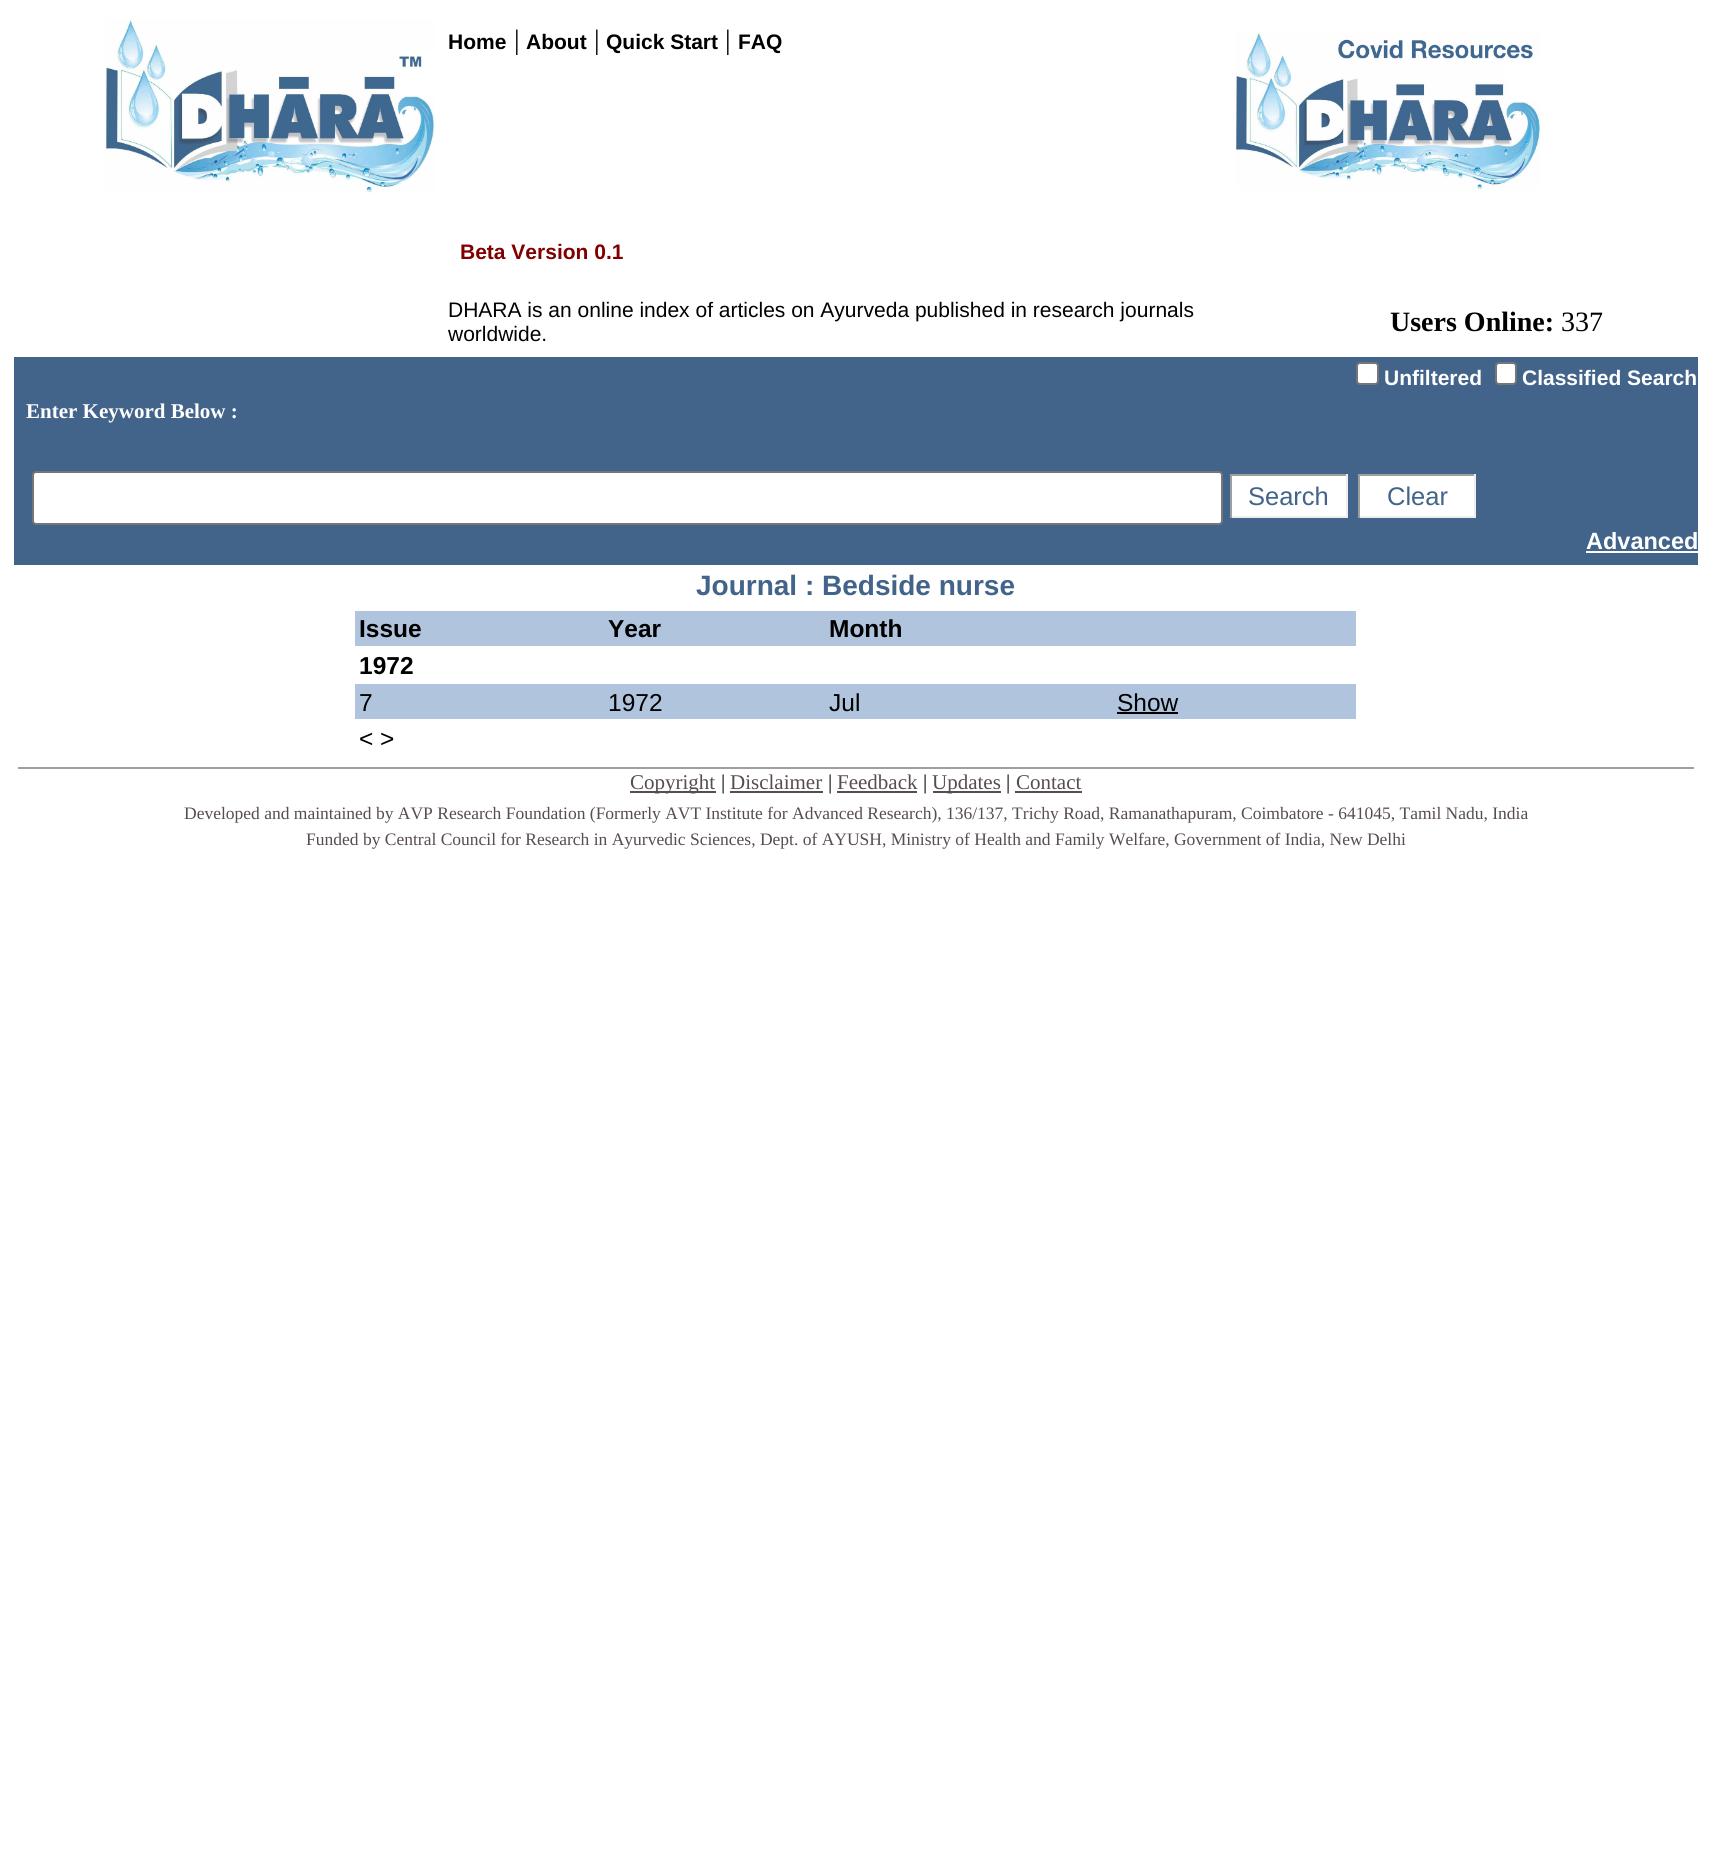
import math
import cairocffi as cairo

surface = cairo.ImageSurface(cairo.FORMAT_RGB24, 1711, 1856)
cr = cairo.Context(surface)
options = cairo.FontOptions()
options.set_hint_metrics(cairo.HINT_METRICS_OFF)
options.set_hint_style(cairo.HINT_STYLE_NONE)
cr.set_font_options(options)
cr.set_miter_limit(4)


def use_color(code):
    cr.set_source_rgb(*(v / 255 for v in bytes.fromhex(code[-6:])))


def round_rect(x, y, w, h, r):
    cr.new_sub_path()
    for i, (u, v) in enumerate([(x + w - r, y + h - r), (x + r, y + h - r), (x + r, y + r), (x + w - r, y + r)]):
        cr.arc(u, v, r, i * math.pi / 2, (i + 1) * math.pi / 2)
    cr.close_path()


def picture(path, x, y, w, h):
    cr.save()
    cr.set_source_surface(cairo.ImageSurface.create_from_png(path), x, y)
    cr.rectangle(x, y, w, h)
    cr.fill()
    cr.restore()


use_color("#ffffff")
cr.paint()
picture("img1.png", 105, 19, 330, 174)
cr.select_font_face("Liberation Sans", cairo.FONT_SLANT_NORMAL, cairo.FONT_WEIGHT_BOLD)
cr.set_font_size(21)
use_color("#000000")
cr.move_to(448, 49)
cr.show_text("Home")
cr.select_font_face("Liberation Serif")
cr.set_font_size(28)
cr.move_to(514, 49)
cr.show_text("|")
cr.select_font_face("Liberation Sans", cairo.FONT_SLANT_NORMAL, cairo.FONT_WEIGHT_BOLD)
cr.set_font_size(21)
cr.move_to(526, 49)
cr.show_text("About")
cr.select_font_face("Liberation Serif")
cr.set_font_size(28)
cr.move_to(594, 49)
cr.show_text("|")
cr.select_font_face("Liberation Sans", cairo.FONT_SLANT_NORMAL, cairo.FONT_WEIGHT_BOLD)
cr.set_font_size(21)
cr.move_to(606, 49)
cr.show_text("Quick Start")
cr.select_font_face("Liberation Serif")
cr.set_font_size(28)
cr.move_to(725, 49)
cr.show_text("|")
cr.select_font_face("Liberation Sans", cairo.FONT_SLANT_NORMAL, cairo.FONT_WEIGHT_BOLD)
cr.set_font_size(21)
cr.move_to(738, 49)
cr.show_text("FAQ")
picture("img2.png", 1235, 32, 306, 158)
use_color("#800000")
cr.move_to(460, 259)
cr.show_text("Beta Version 0.1")
cr.select_font_face("Liberation Sans")
use_color("#000000")
cr.move_to(448, 317)
cr.show_text("DHARA is an online index of articles on Ayurveda published in research journals")
cr.move_to(448, 341)
cr.show_text("worldwide.")
cr.select_font_face("Liberation Serif", cairo.FONT_SLANT_NORMAL, cairo.FONT_WEIGHT_BOLD)
cr.set_font_size(28)
cr.move_to(1390, 331)
cr.show_text("Users Online:")
cr.select_font_face("Liberation Serif")
cr.move_to(1561, 331)
cr.show_text("337")
use_color("#42638a")
cr.rectangle(14, 357, 1684, 208)
cr.fill()
use_color("#ffffff")
round_rect(1357, 363, 21, 21, 3)
cr.fill_preserve()
use_color("#767676")
cr.stroke()
cr.select_font_face("Liberation Sans", cairo.FONT_SLANT_NORMAL, cairo.FONT_WEIGHT_BOLD)
cr.set_font_size(21)
use_color("#ffffff")
cr.move_to(1384, 385)
cr.show_text("Unfiltered")
round_rect(1496, 363, 20, 21, 3)
cr.fill_preserve()
use_color("#767676")
cr.stroke()
use_color("#ffffff")
cr.move_to(1522, 385)
cr.show_text("Classified Search")
cr.select_font_face("Liberation Serif", cairo.FONT_SLANT_NORMAL, cairo.FONT_WEIGHT_BOLD)
cr.move_to(26, 418)
cr.show_text("Enter Keyword Below :")
round_rect(33, 472, 1189, 52, 3)
cr.fill_preserve()
use_color("#767676")
cr.stroke()
use_color("#ffffff")
cr.rectangle(1232, 476, 114, 40)
cr.fill()
use_color("#9f9f9f")
cr.rectangle(1230, 474, 118, 2)
cr.fill()
use_color("#eeeeee")
cr.rectangle(1346, 474, 2, 44)
cr.fill()
cr.rectangle(1230, 516, 118, 2)
cr.fill()
use_color("#9f9f9f")
cr.rectangle(1230, 474, 2, 44)
cr.fill()
cr.select_font_face("Liberation Sans")
cr.set_font_size(25.5)
use_color("#42638a")
cr.move_to(1248, 505)
cr.show_text("Search")
use_color("#ffffff")
cr.rectangle(1360, 476, 114, 40)
cr.fill()
use_color("#9f9f9f")
cr.rectangle(1358, 474, 117, 2)
cr.fill()
use_color("#eeeeee")
cr.rectangle(1474, 474, 2, 44)
cr.fill()
cr.rectangle(1358, 516, 117, 2)
cr.fill()
use_color("#9f9f9f")
cr.rectangle(1358, 474, 2, 44)
cr.fill()
use_color("#42638a")
cr.move_to(1387, 505)
cr.show_text("Clear")
cr.select_font_face("Liberation Sans", cairo.FONT_SLANT_NORMAL, cairo.FONT_WEIGHT_BOLD)
cr.set_font_size(23.5)
use_color("#ffffff")
cr.move_to(1586, 549)
cr.show_text("Advanced")
cr.rectangle(1586, 551, 112, 2)
cr.fill()
cr.set_font_size(28)
use_color("#42638a")
cr.move_to(696, 595)
cr.show_text("Journal : Bedside nurse")
use_color("#b0c4de")
cr.rectangle(355, 611, 1001, 35)
cr.fill()
cr.set_font_size(24.5)
use_color("#000000")
cr.move_to(359, 637)
cr.show_text("Issue")
cr.move_to(608, 637)
cr.show_text("Year")
cr.move_to(829, 637)
cr.show_text("Month")
cr.move_to(359, 674)
cr.show_text("1972")
use_color("#b0c4de")
cr.rectangle(355, 684, 1001, 35)
cr.fill()
cr.select_font_face("Liberation Sans")
use_color("#000000")
cr.move_to(359, 711)
cr.show_text("7")
cr.move_to(608, 711)
cr.show_text("1972")
cr.move_to(829, 711)
cr.show_text("Jul")
cr.move_to(1117, 711)
cr.show_text("Show")
cr.rectangle(1117, 712, 61, 2)
cr.fill()
cr.move_to(359, 747)
cr.show_text("< >")
use_color("#9f9f9f")
cr.rectangle(18, 767, 1676, 2)
cr.fill()
use_color("#584d4d")
cr.rectangle(630, 791, 86, 2)
cr.fill()
cr.select_font_face("Liberation Serif")
cr.set_font_size(21)
cr.move_to(630, 789)
cr.show_text("Copyright")
use_color("#000000")
cr.move_to(721, 789)
cr.show_text("|")
use_color("#584d4d")
cr.move_to(730, 789)
cr.show_text("Disclaimer")
cr.rectangle(730, 791, 93, 2)
cr.fill()
use_color("#000000")
cr.move_to(828, 789)
cr.show_text("|")
use_color("#584d4d")
cr.move_to(837, 789)
cr.show_text("Feedback")
cr.rectangle(837, 791, 80, 2)
cr.fill()
use_color("#000000")
cr.move_to(923, 789)
cr.show_text("|")
use_color("#584d4d")
cr.rectangle(933, 791, 68, 2)
cr.fill()
cr.move_to(932, 789)
cr.show_text("Updates")
use_color("#000000")
cr.move_to(1006, 789)
cr.show_text("|")
use_color("#584d4d")
cr.move_to(1016, 789)
cr.show_text("Contact")
cr.rectangle(1015, 791, 67, 2)
cr.fill()
cr.set_font_size(17.5)
cr.move_to(184, 819)
cr.show_text("Developed and maintained by AVP Research Foundation (Formerly AVT Institute for Advanced Research), 136/137, Trichy Road, Ramanathapuram, Coimbatore - 641045, Tamil Nadu, India")
cr.move_to(306, 845)
cr.show_text("Funded by Central Council for Research in Ayurvedic Sciences, Dept. of AYUSH, Ministry of Health and Family Welfare, Government of India, New Delhi")
surface.write_to_png("result.png")
